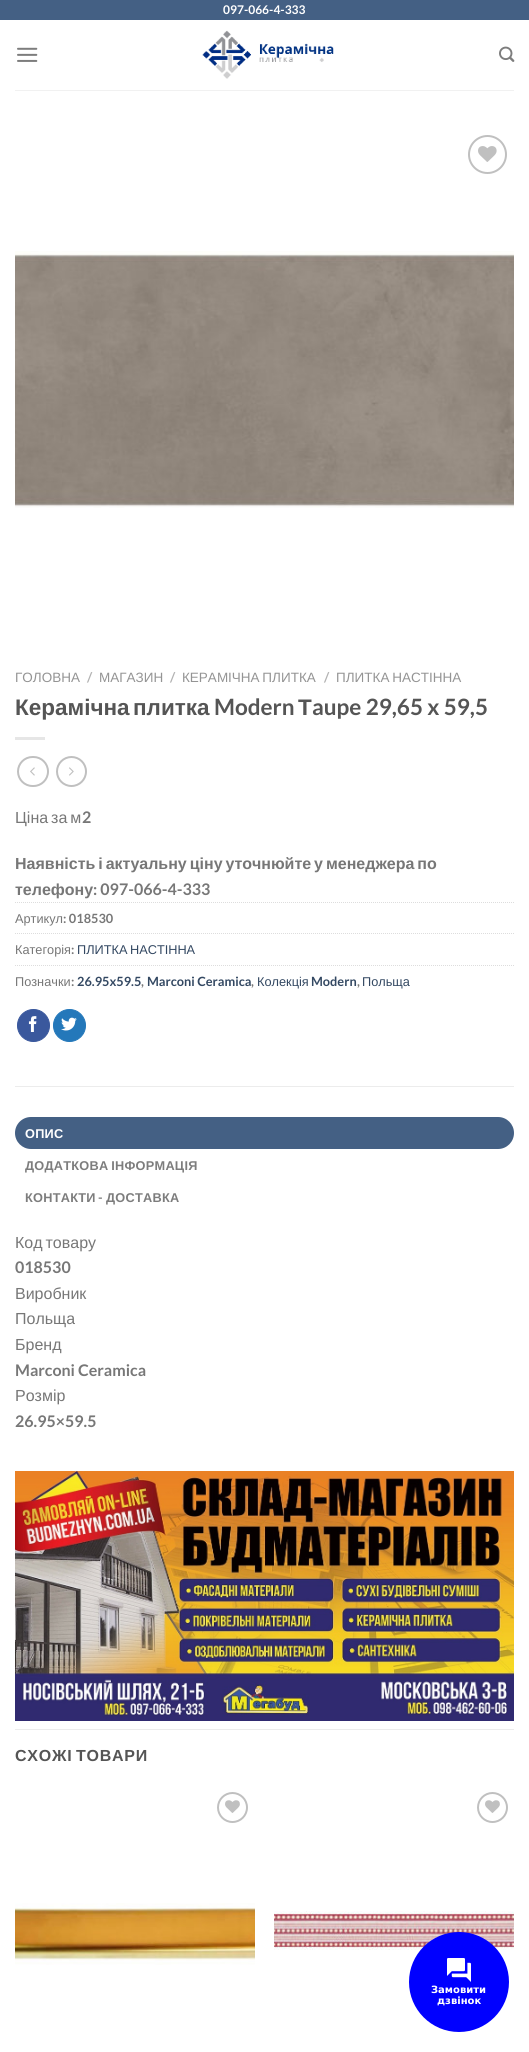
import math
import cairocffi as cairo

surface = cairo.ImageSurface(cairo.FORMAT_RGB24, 529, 2052)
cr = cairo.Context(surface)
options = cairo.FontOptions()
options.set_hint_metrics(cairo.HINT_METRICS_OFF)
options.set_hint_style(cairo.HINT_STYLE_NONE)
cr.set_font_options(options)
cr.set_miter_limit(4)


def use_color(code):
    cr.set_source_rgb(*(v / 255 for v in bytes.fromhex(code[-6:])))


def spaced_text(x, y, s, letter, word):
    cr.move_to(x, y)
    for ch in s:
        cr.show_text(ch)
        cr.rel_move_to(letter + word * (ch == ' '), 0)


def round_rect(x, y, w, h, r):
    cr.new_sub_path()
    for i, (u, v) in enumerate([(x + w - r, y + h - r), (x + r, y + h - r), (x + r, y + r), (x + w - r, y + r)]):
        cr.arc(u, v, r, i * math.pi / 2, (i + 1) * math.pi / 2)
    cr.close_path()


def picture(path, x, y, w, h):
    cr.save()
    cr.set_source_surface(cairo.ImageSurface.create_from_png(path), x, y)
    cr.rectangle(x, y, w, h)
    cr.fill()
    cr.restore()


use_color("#ffffff")
cr.paint()
use_color("#446084")
cr.rectangle(0, 0, 529, 20)
cr.fill()
cr.select_font_face("Lato", cairo.FONT_SLANT_NORMAL, cairo.FONT_WEIGHT_BOLD)
cr.set_font_size(12)
use_color("#ffffff")
cr.move_to(223, 14)
cr.show_text("097-066-4-333")
picture("img1.png", 17, 47, 21, 15)
picture("img2.png", 202, 30, 132, 49)
picture("img3.png", 499, 46, 16, 16)
use_color("#f1f1f1")
cr.rectangle(15, 90, 499, 1)
cr.fill()
cr.arc(487.5, 154.5, 18.5, 0, 2 * math.pi)
use_color("#c0c0c0")
cr.stroke()
picture("img4.png", 478, 146, 19, 16)
picture("img5.png", 15, 251, 499, 257)
cr.select_font_face("Liberation Sans")
cr.set_font_size(13.5)
use_color("#949494")
cr.move_to(15, 682)
cr.show_text("ГОЛОВНА")
cr.select_font_face("Lato", cairo.FONT_SLANT_NORMAL, cairo.FONT_WEIGHT_BOLD)
use_color("#b2b2b2")
cr.move_to(87, 682)
cr.show_text("/")
cr.select_font_face("Liberation Sans")
use_color("#949494")
cr.move_to(99, 682)
cr.show_text("МАГАЗИН")
cr.select_font_face("Lato", cairo.FONT_SLANT_NORMAL, cairo.FONT_WEIGHT_BOLD)
use_color("#b2b2b2")
cr.move_to(170, 682)
cr.show_text("/")
cr.select_font_face("Liberation Sans")
use_color("#949494")
spaced_text(182, 682, "КЕРАМІЧНА ПЛИТКА", 0, -1)
cr.select_font_face("Lato", cairo.FONT_SLANT_NORMAL, cairo.FONT_WEIGHT_BOLD)
use_color("#b2b2b2")
cr.move_to(324, 682)
cr.show_text("/")
cr.select_font_face("Liberation Sans")
use_color("#949494")
spaced_text(336, 682, "ПЛИТКА НАСТІННА", 0, -1)
cr.select_font_face("Liberation Sans", cairo.FONT_SLANT_NORMAL, cairo.FONT_WEIGHT_BOLD)
cr.set_font_size(22.5)
use_color("#555555")
cr.move_to(15, 715)
cr.show_text("Керамічна")
cr.move_to(133, 715)
cr.show_text("плитка")
cr.select_font_face("Lato", cairo.FONT_SLANT_NORMAL, cairo.FONT_WEIGHT_BOLD)
cr.move_to(214, 715)
cr.show_text("Modern")
cr.select_font_face("Liberation Sans", cairo.FONT_SLANT_NORMAL, cairo.FONT_WEIGHT_BOLD)
cr.move_to(298, 715)
cr.show_text("Т")
cr.select_font_face("Lato", cairo.FONT_SLANT_NORMAL, cairo.FONT_WEIGHT_BOLD)
cr.move_to(312, 715)
cr.show_text("aupe 29,65 x 59,5")
use_color("#e6e6e6")
cr.rectangle(15, 737, 30, 3)
cr.fill()
round_rect(18, 757, 30, 29, 14.5)
use_color("#c0c0c0")
cr.stroke()
picture("img6.png", 30, 767, 5, 9)
cr.arc(71.5, 771.5, 14.5, 0, 2 * math.pi)
cr.stroke()
picture("img7.png", 69, 767, 5, 9)
cr.select_font_face("Liberation Sans")
cr.set_font_size(16)
use_color("#777777")
spaced_text(15, 823, "Ціна за м", 0, -1.5)
cr.select_font_face("Lato", cairo.FONT_SLANT_NORMAL, cairo.FONT_WEIGHT_BOLD)
cr.move_to(82, 823)
cr.show_text("2")
cr.select_font_face("Liberation Sans", cairo.FONT_SLANT_NORMAL, cairo.FONT_WEIGHT_BOLD)
spaced_text(15, 869, "Наявність і актуальну ціну уточнюйте у менеджера по", 0, -1.5)
cr.move_to(15, 895)
cr.show_text("телефону")
cr.select_font_face("Lato", cairo.FONT_SLANT_NORMAL, cairo.FONT_WEIGHT_BOLD)
cr.move_to(93, 895)
cr.show_text(": 097-066-4-333")
cr.new_path()
cr.move_to(15, 902.5)
cr.line_to(514, 902.5)
use_color("#dddddd")
cr.set_line_width(1)
cr.set_dash([1, 1])
cr.stroke()
cr.select_font_face("Liberation Sans")
cr.set_font_size(12.75)
use_color("#777777")
cr.move_to(15, 923)
cr.show_text("Артикул")
cr.select_font_face("Lato", cairo.FONT_SLANT_NORMAL, cairo.FONT_WEIGHT_BOLD)
cr.move_to(63, 923)
cr.show_text(": 018530")
cr.new_path()
cr.move_to(15, 933.5)
cr.line_to(514, 933.5)
use_color("#dddddd")
cr.stroke()
cr.select_font_face("Liberation Sans")
use_color("#777777")
cr.move_to(15, 954)
cr.show_text("Категорія")
cr.select_font_face("Lato", cairo.FONT_SLANT_NORMAL, cairo.FONT_WEIGHT_BOLD)
cr.move_to(71, 954)
cr.show_text(":")
cr.select_font_face("Liberation Sans")
use_color("#334862")
spaced_text(77, 954, "ПЛИТКА НАСТІННА", 0, -1)
cr.new_path()
cr.move_to(15, 965.5)
cr.line_to(514, 965.5)
use_color("#dddddd")
cr.stroke()
use_color("#777777")
cr.move_to(15, 986)
cr.show_text("Позначки")
cr.select_font_face("Lato", cairo.FONT_SLANT_NORMAL, cairo.FONT_WEIGHT_BOLD)
cr.move_to(71, 986)
cr.show_text(":")
use_color("#334862")
cr.move_to(77, 986)
cr.show_text("26.95x59.5")
use_color("#777777")
cr.move_to(141, 986)
cr.show_text(",")
use_color("#334862")
cr.move_to(147, 986)
cr.show_text("Marconi Ceramica")
use_color("#777777")
cr.move_to(251, 986)
cr.show_text(",")
cr.select_font_face("Liberation Sans")
use_color("#334862")
cr.move_to(257, 986)
cr.show_text("Колекція")
cr.select_font_face("Lato", cairo.FONT_SLANT_NORMAL, cairo.FONT_WEIGHT_BOLD)
cr.move_to(311, 986)
cr.show_text("Modern")
use_color("#777777")
cr.move_to(357, 986)
cr.show_text(",")
cr.select_font_face("Liberation Sans")
use_color("#334862")
cr.move_to(362, 986)
cr.show_text("Польща")
use_color("#3a589d")
cr.new_path()
cr.arc(33.5, 1025.5, 16, 0, 2 * math.pi)
cr.fill_preserve()
cr.set_dash([])
cr.stroke()
picture("img8.png", 28, 1016, 9, 16)
use_color("#2478ba")
cr.arc(69.5, 1025.5, 16, 0, 2 * math.pi)
cr.fill_preserve()
cr.stroke()
picture("img9.png", 61, 1017, 16, 14)
use_color("#ececec")
cr.rectangle(15, 1086, 499, 1)
cr.fill()
use_color("#446084")
round_rect(15, 1117, 499, 32, 16)
cr.fill()
cr.select_font_face("Liberation Sans", cairo.FONT_SLANT_NORMAL, cairo.FONT_WEIGHT_BOLD)
use_color("#ffffff")
spaced_text(25, 1138, "ОПИС", 0.25, 0)
use_color("#7d7d7d")
spaced_text(25, 1170, "ДОДАТКОВА ІНФОРМАЦІЯ", 0.25, -1)
spaced_text(25, 1202, "КОНТАКТИ", 0.25, 0)
cr.select_font_face("Lato", cairo.FONT_SLANT_NORMAL, cairo.FONT_WEIGHT_BOLD)
spaced_text(98, 1202, "-", 0.25, 0)
cr.select_font_face("Liberation Sans", cairo.FONT_SLANT_NORMAL, cairo.FONT_WEIGHT_BOLD)
spaced_text(106, 1202, "ДОСТАВКА", 0.25, 0)
cr.select_font_face("Liberation Sans")
cr.set_font_size(16)
use_color("#777777")
spaced_text(15, 1248, "Код товару", 0, -1.5)
cr.select_font_face("Lato", cairo.FONT_SLANT_NORMAL, cairo.FONT_WEIGHT_BOLD)
cr.move_to(15, 1273)
cr.show_text("018530")
cr.select_font_face("Liberation Sans")
cr.move_to(15, 1299)
cr.show_text("Виробник")
cr.move_to(15, 1324)
cr.show_text("Польща")
cr.move_to(15, 1350)
cr.show_text("Бренд")
cr.select_font_face("Lato", cairo.FONT_SLANT_NORMAL, cairo.FONT_WEIGHT_BOLD)
cr.move_to(15, 1376)
cr.show_text("Marconi Ceramica")
cr.select_font_face("Liberation Sans")
cr.move_to(15, 1401)
cr.show_text("Розмір")
cr.select_font_face("Lato", cairo.FONT_SLANT_NORMAL, cairo.FONT_WEIGHT_BOLD)
cr.move_to(15, 1427)
cr.show_text("26.95×59.5")
picture("img10.png", 15, 1471, 499, 250)
use_color("#ececec")
cr.rectangle(15, 1729, 499, 1)
cr.fill()
cr.select_font_face("Liberation Sans", cairo.FONT_SLANT_NORMAL, cairo.FONT_WEIGHT_BOLD)
use_color("#555555")
spaced_text(15, 1761, "СХОЖІ ТОВАРИ", 0.75, -1.5)
cr.new_path()
cr.arc(232.5, 1807.5, 14.5, 0, 2 * math.pi)
use_color("#c0c0c0")
cr.set_line_width(2)
cr.stroke()
picture("img11.png", 225, 1800, 15, 13)
picture("img12.png", 15, 1903, 240, 62)
cr.arc(492.5, 1807.5, 14.5, 0, 2 * math.pi)
cr.stroke()
picture("img11.png", 485, 1800, 15, 13)
picture("img13.png", 274, 1911, 240, 39)
use_color("#0000ff")
cr.arc(459, 1982, 50, 0, 2 * math.pi)
cr.fill()
picture("img14.png", 447, 1958, 24, 24)
cr.select_font_face("DejaVu Sans", cairo.FONT_SLANT_NORMAL, cairo.FONT_WEIGHT_BOLD)
cr.set_font_size(10)
use_color("#ffffff")
cr.move_to(431, 1993)
cr.show_text("Замовити")
cr.move_to(437, 2004)
cr.show_text("дзвінок")
surface.write_to_png("result.png")
